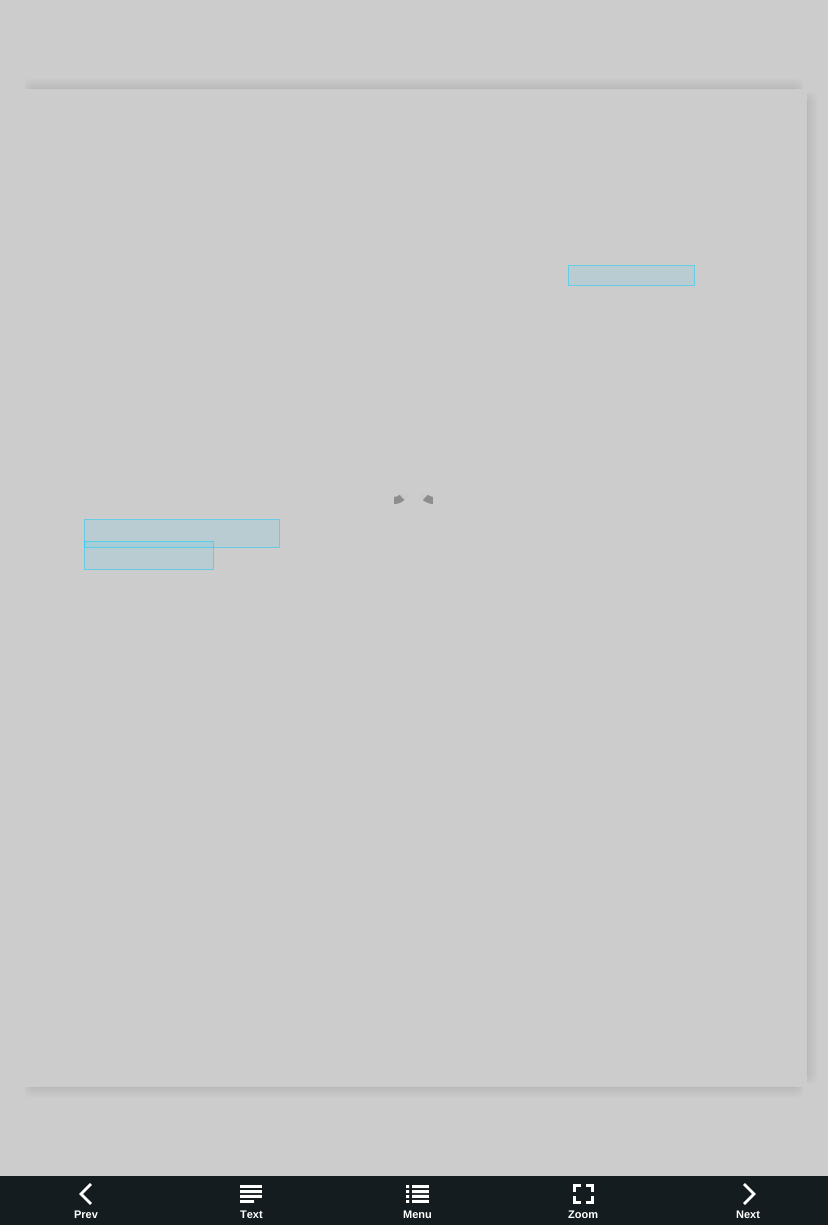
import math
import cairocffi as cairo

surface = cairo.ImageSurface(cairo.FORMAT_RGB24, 828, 1225)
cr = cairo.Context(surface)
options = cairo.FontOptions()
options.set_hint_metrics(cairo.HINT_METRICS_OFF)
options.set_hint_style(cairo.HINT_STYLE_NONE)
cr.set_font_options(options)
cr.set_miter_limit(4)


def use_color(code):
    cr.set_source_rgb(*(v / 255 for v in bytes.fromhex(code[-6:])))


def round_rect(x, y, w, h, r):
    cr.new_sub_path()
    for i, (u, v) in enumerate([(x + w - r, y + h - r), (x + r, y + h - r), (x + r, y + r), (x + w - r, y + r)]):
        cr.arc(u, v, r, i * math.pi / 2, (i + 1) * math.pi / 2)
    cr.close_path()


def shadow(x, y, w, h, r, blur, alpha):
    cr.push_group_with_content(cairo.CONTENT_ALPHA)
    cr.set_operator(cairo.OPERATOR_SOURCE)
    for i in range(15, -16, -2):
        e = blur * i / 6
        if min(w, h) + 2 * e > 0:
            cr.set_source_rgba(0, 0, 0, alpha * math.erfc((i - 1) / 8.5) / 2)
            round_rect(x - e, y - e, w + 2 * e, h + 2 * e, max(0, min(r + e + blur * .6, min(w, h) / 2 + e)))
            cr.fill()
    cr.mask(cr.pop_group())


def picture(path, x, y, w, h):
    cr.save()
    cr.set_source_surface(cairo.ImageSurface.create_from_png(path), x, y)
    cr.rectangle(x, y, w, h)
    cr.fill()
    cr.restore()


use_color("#cccccc")
cr.paint()
cr.save()
cr.rectangle(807, 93, 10, 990)
cr.clip()
use_color("#000000")
shadow(41, 99, 766, 978, 0, 7.5, 0.2)
cr.restore()
cr.save()
cr.rectangle(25, 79, 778, 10)
cr.clip()
use_color("#000000")
shadow(31, 89, 766, 978, 0, 7.5, 0.2)
cr.restore()
cr.save()
cr.rectangle(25, 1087, 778, 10)
cr.clip()
use_color("#000000")
shadow(31, 109, 766, 978, 0, 7.5, 0.2)
cr.restore()
cr.rectangle(568.5, 265.5, 126, 20)
use_color("#66cce6")
cr.set_line_width(1)
cr.stroke()
use_color("#b8ccd1")
cr.rectangle(569, 266, 125, 19)
cr.fill()
picture("img1.png", 394, 494, 39, 10)
cr.rectangle(84.5, 519.5, 195, 28)
use_color("#66cce6")
cr.stroke()
use_color("#b8ccd1")
cr.rectangle(85, 520, 194, 27)
cr.fill()
cr.rectangle(84.5, 541.5, 129, 28)
cr.set_source_rgba(0, 0.8, 1, 0.5)
cr.stroke()
cr.set_source_rgba(0, 0.8, 1, 0.1)
cr.rectangle(85, 542, 128, 27)
cr.fill()
use_color("#151c20")
cr.rectangle(0, 1176, 828, 49)
cr.fill()
picture("img2.png", 79, 1183, 13, 22)
cr.select_font_face("Liberation Sans", cairo.FONT_SLANT_NORMAL, cairo.FONT_WEIGHT_BOLD)
cr.set_font_size(11)
use_color("#ffffff")
cr.move_to(74, 1218)
cr.show_text("Prev")
picture("img3.png", 240, 1185, 22, 18)
cr.move_to(240, 1218)
cr.show_text("Text")
picture("img4.png", 406, 1185, 23, 18)
cr.move_to(403, 1218)
cr.show_text("Menu")
picture("img5.png", 573, 1184, 21, 20)
cr.move_to(568, 1218)
cr.show_text("Zoom")
picture("img6.png", 743, 1183, 13, 22)
cr.move_to(736, 1218)
cr.show_text("Next")
surface.write_to_png("result.png")
